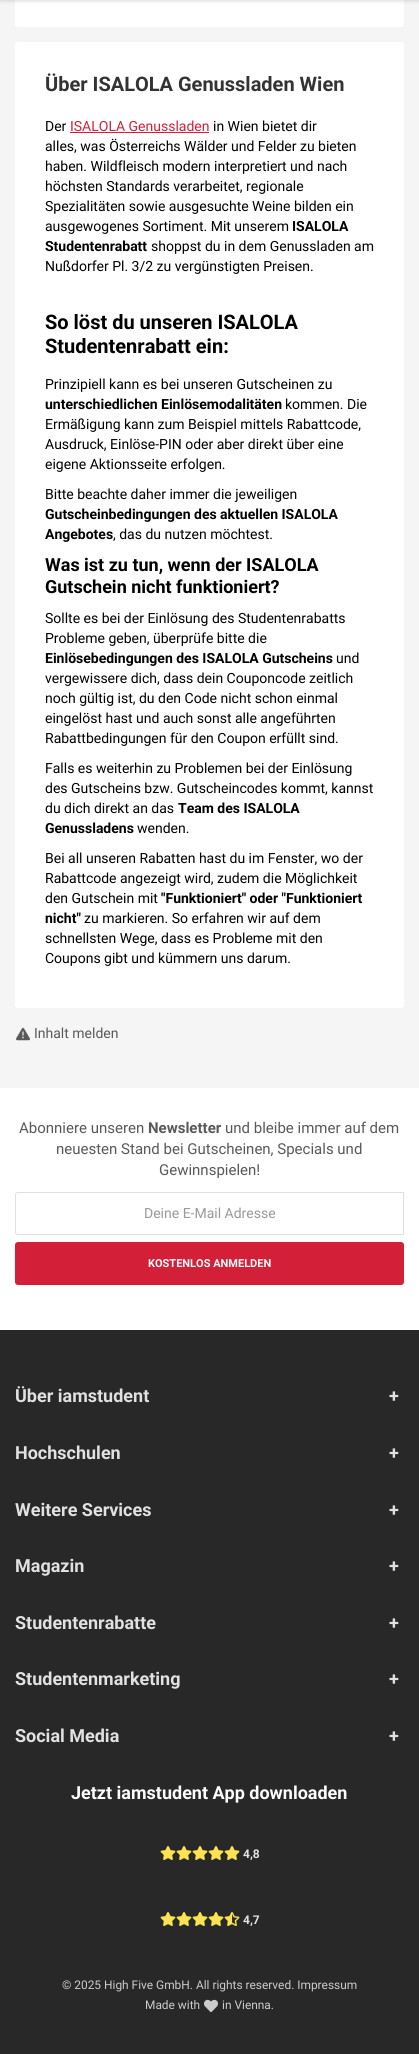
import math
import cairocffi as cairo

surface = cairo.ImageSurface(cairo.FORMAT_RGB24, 419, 2054)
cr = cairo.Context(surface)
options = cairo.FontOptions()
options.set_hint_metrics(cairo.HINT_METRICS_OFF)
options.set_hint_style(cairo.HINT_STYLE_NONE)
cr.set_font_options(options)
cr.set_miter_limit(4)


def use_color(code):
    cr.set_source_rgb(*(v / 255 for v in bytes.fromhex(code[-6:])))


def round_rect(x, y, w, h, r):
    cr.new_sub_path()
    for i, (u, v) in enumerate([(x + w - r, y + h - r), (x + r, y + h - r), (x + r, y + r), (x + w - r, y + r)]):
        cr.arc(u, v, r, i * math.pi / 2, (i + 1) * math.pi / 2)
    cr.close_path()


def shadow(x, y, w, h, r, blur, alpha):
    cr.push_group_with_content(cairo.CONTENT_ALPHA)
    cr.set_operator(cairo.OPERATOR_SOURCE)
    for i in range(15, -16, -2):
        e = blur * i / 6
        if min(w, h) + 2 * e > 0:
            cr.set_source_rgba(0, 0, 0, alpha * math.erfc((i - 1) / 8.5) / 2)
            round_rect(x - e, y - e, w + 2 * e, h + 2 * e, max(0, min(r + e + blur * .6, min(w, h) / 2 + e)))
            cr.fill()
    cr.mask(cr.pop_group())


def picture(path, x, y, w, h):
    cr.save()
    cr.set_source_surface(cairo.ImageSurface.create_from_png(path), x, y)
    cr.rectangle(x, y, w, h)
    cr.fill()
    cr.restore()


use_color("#f5f5f5")
cr.paint()
use_color("#ffffff")
round_rect(15, -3, 389, 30, 3)
cr.fill()
use_color("#000000")
shadow(0, -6, 419, 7, 0, 2, 0.15)
use_color("#ffffff")
round_rect(15, 42, 389, 966, 3)
cr.fill()
cr.select_font_face("Roboto", cairo.FONT_SLANT_NORMAL, cairo.FONT_WEIGHT_BOLD)
cr.set_font_size(20)
use_color("#333333")
cr.move_to(45, 91)
cr.show_text("Über ISALOLA Genussladen Wien")
cr.select_font_face("Roboto")
cr.set_font_size(14)
use_color("#000000")
cr.move_to(45, 131)
cr.show_text("Der")
use_color("#d41f39")
cr.move_to(70, 131)
cr.show_text("ISALOLA Genussladen")
cr.rectangle(70, 132, 139, 1)
cr.fill()
use_color("#000000")
cr.move_to(213, 131)
cr.show_text("in Wien bietet dir")
cr.move_to(45, 151)
cr.show_text("alles, was Österreichs Wälder und Felder zu bieten")
cr.move_to(45, 171)
cr.show_text("haben. Wildfleisch modern interpretiert und nach")
cr.move_to(45, 191)
cr.show_text("höchsten Standards verarbeitet, regionale")
cr.move_to(45, 211)
cr.show_text("Spezialitäten sowie ausgesuchte Weine bilden ein")
cr.move_to(45, 231)
cr.show_text("ausgewogenes Sortiment. Mit unserem")
cr.select_font_face("Roboto", cairo.FONT_SLANT_NORMAL, cairo.FONT_WEIGHT_BOLD)
cr.move_to(292, 231)
cr.show_text("ISALOLA")
cr.move_to(45, 251)
cr.show_text("Studentenrabatt")
cr.select_font_face("Roboto")
cr.move_to(151, 251)
cr.show_text("shoppst du in dem Genussladen am")
cr.move_to(45, 271)
cr.show_text("Nußdorfer Pl. 3/2 zu vergünstigten Preisen.")
cr.select_font_face("Roboto", cairo.FONT_SLANT_NORMAL, cairo.FONT_WEIGHT_BOLD)
cr.set_font_size(20)
cr.move_to(45, 329)
cr.show_text("So löst du unseren ISALOLA")
cr.move_to(45, 353)
cr.show_text("Studentenrabatt ein:")
cr.select_font_face("Roboto")
cr.set_font_size(14)
cr.move_to(45, 389)
cr.show_text("Prinzipiell kann es bei unseren Gutscheinen zu")
cr.select_font_face("Roboto", cairo.FONT_SLANT_NORMAL, cairo.FONT_WEIGHT_BOLD)
cr.move_to(45, 409)
cr.show_text("unterschiedlichen Einlösemodalitäten")
cr.select_font_face("Roboto")
cr.move_to(285, 409)
cr.show_text("kommen. Die")
cr.move_to(45, 429)
cr.show_text("Ermäßigung kann zum Beispiel mittels Rabattcode,")
cr.move_to(45, 449)
cr.show_text("Ausdruck, Einlöse-PIN oder aber direkt über eine")
cr.move_to(45, 469)
cr.show_text("eigene Aktionsseite erfolgen.")
cr.move_to(45, 499)
cr.show_text("Bitte beachte daher immer die jeweiligen")
cr.select_font_face("Roboto", cairo.FONT_SLANT_NORMAL, cairo.FONT_WEIGHT_BOLD)
cr.move_to(45, 519)
cr.show_text("Gutscheinbedingungen des aktuellen ISALOLA")
cr.move_to(45, 539)
cr.show_text("Angebotes")
cr.select_font_face("Roboto")
cr.move_to(113, 539)
cr.show_text(", das du nutzen möchtest.")
cr.select_font_face("Roboto", cairo.FONT_SLANT_NORMAL, cairo.FONT_WEIGHT_BOLD)
cr.set_font_size(18)
cr.move_to(45, 571)
cr.show_text("Was ist zu tun, wenn der ISALOLA")
cr.move_to(45, 593)
cr.show_text("Gutschein nicht funktioniert?")
cr.select_font_face("Roboto")
cr.set_font_size(14)
cr.move_to(45, 623)
cr.show_text("Sollte es bei der Einlösung des Studentenrabatts")
cr.move_to(45, 643)
cr.show_text("Probleme geben, überprüfe bitte die")
cr.select_font_face("Roboto", cairo.FONT_SLANT_NORMAL, cairo.FONT_WEIGHT_BOLD)
cr.move_to(45, 663)
cr.show_text("Einlösebedingungen des ISALOLA Gutscheins")
cr.select_font_face("Roboto")
cr.move_to(336, 663)
cr.show_text("und")
cr.move_to(45, 683)
cr.show_text("vergewissere dich, dass dein Couponcode zeitlich")
cr.move_to(45, 703)
cr.show_text("noch gültig ist, du den Code nicht schon einmal")
cr.move_to(45, 723)
cr.show_text("eingelöst hast und auch sonst alle angeführten")
cr.move_to(45, 743)
cr.show_text("Rabattbedingungen für den Coupon erfüllt sind.")
cr.move_to(45, 773)
cr.show_text("Falls es weiterhin zu Problemen bei der Einlösung")
cr.move_to(45, 793)
cr.show_text("des Gutscheins bzw. Gutscheincodes kommt, kannst")
cr.move_to(45, 813)
cr.show_text("du dich direkt an das")
cr.select_font_face("Roboto", cairo.FONT_SLANT_NORMAL, cairo.FONT_WEIGHT_BOLD)
cr.move_to(178, 813)
cr.show_text("Team des ISALOLA")
cr.move_to(45, 833)
cr.show_text("Genussladens")
cr.select_font_face("Roboto")
cr.move_to(137, 833)
cr.show_text("wenden.")
cr.move_to(45, 863)
cr.show_text("Bei all unseren Rabatten hast du im Fenster, wo der")
cr.move_to(45, 883)
cr.show_text("Rabattcode angezeigt wird, zudem die Möglichkeit")
cr.move_to(45, 903)
cr.show_text("den Gutschein mit")
cr.select_font_face("Roboto", cairo.FONT_SLANT_NORMAL, cairo.FONT_WEIGHT_BOLD)
cr.move_to(161, 903)
cr.show_text("\"Funktioniert\" oder \"Funktioniert")
cr.move_to(45, 923)
cr.show_text("nicht\"")
cr.select_font_face("Roboto")
cr.move_to(84, 923)
cr.show_text("zu markieren. So erfahren wir auf dem")
cr.move_to(45, 943)
cr.show_text("schnellsten Wege, dass es Probleme mit den")
cr.move_to(45, 963)
cr.show_text("Coupons gibt und kümmern uns darum.")
picture("img1.png", 16, 1027, 14, 14)
use_color("#595959")
cr.move_to(34, 1038)
cr.show_text("Inhalt melden")
use_color("#282828")
cr.rectangle(0, 1330, 419, 724)
cr.fill()
use_color("#ffffff")
cr.rectangle(0, 1088, 419, 242)
cr.fill()
cr.set_font_size(15)
use_color("#595959")
cr.move_to(19, 1133)
cr.show_text("Abonniere unseren")
cr.select_font_face("Roboto", cairo.FONT_SLANT_NORMAL, cairo.FONT_WEIGHT_BOLD)
cr.move_to(148, 1133)
cr.show_text("Newsletter")
cr.select_font_face("Roboto")
cr.move_to(225, 1133)
cr.show_text("und bleibe immer auf dem")
cr.move_to(56, 1154)
cr.show_text("neuesten Stand bei Gutscheinen, Specials und")
cr.move_to(159, 1175)
cr.show_text("Gewinnspielen!")
cr.new_path()
cr.move_to(18, 1192.5)
cr.line_to(403.5, 1192.5)
cr.line_to(403.5, 1234.5)
cr.line_to(18, 1234.5)
cr.curve_to(16.5, 1234.5, 15.5, 1233.5, 15.5, 1232)
cr.line_to(15.5, 1195)
cr.curve_to(15.5, 1193.5, 16.5, 1192.5, 18, 1192.5)
cr.close_path()
use_color("#e0dfdf")
cr.set_line_width(1)
cr.stroke()
cr.set_font_size(14)
use_color("#999999")
cr.move_to(144, 1218)
cr.show_text("Deine E-Mail Adresse")
use_color("#d41f39")
round_rect(15, 1242, 389, 43, 3)
cr.fill()
cr.select_font_face("Roboto", cairo.FONT_SLANT_NORMAL, cairo.FONT_WEIGHT_BOLD)
cr.set_font_size(11)
use_color("#ffffff")
cr.move_to(148, 1267)
cr.show_text("KOSTENLOS ANMELDEN")
cr.set_font_size(18)
use_color("#e1e1e1")
cr.move_to(15, 1402)
cr.show_text("Über iamstudent")
cr.move_to(389, 1402)
cr.show_text("+")
cr.move_to(15, 1459)
cr.show_text("Hochschulen")
cr.move_to(389, 1459)
cr.show_text("+")
cr.move_to(15, 1516)
cr.show_text("Weitere Services")
cr.move_to(389, 1516)
cr.show_text("+")
cr.move_to(15, 1572)
cr.show_text("Magazin")
cr.move_to(389, 1572)
cr.show_text("+")
cr.move_to(15, 1629)
cr.show_text("Studentenrabatte")
cr.move_to(389, 1629)
cr.show_text("+")
cr.move_to(15, 1685)
cr.show_text("Studentenmarketing")
cr.move_to(389, 1685)
cr.show_text("+")
cr.move_to(15, 1742)
cr.show_text("Social Media")
cr.move_to(389, 1742)
cr.show_text("+")
use_color("#ffffff")
cr.move_to(71, 1799)
cr.show_text("Jetzt iamstudent App downloaden")
picture("img2.png", 160, 1846, 16, 14)
picture("img2.png", 176, 1846, 16, 14)
picture("img2.png", 192, 1846, 16, 14)
picture("img2.png", 208, 1846, 16, 14)
picture("img2.png", 224, 1846, 16, 14)
cr.set_font_size(12)
use_color("#e1e1e1")
cr.move_to(243, 1858)
cr.show_text("4,8")
picture("img2.png", 160, 1912, 16, 14)
picture("img2.png", 176, 1912, 16, 14)
picture("img2.png", 192, 1912, 16, 14)
picture("img2.png", 208, 1912, 16, 14)
picture("img3.png", 224, 1912, 16, 14)
cr.move_to(243, 1924)
cr.show_text("4,7")
cr.select_font_face("Roboto")
cr.set_font_size(11.9)
use_color("#cccccc")
cr.move_to(62, 1989)
cr.show_text("© 2025 High Five GmbH. All rights reserved. Impressum")
cr.move_to(145, 2009)
cr.show_text("Made with")
picture("img4.png", 203, 1999, 15, 14)
cr.move_to(222, 2009)
cr.show_text("in Vienna.")
surface.write_to_png("result.png")
